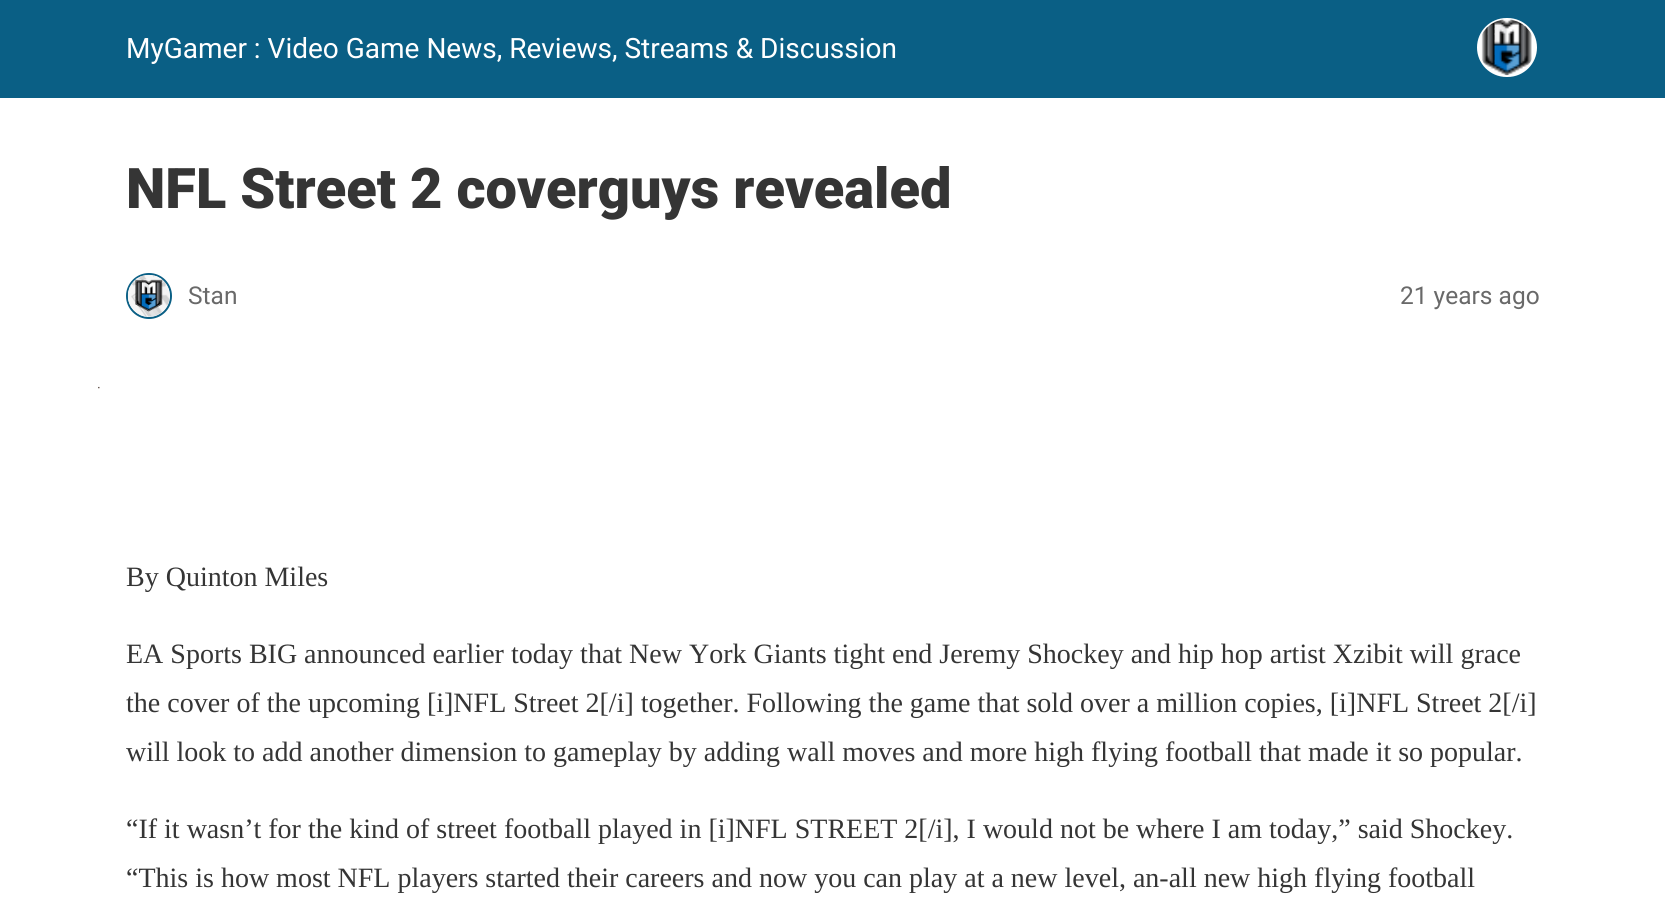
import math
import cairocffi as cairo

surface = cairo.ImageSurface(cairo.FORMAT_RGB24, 1665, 914)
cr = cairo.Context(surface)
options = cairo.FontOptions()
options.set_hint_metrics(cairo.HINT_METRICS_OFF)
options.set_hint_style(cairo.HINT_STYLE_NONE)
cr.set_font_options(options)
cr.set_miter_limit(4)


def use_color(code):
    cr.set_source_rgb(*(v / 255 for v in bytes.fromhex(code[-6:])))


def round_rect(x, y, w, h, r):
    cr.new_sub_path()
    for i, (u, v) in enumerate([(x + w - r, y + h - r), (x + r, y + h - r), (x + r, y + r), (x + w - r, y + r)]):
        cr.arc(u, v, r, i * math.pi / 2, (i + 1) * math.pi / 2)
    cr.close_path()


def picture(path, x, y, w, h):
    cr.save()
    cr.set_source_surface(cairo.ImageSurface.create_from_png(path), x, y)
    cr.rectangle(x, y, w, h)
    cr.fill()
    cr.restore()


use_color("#ffffff")
cr.paint()
use_color("#0a5f85")
cr.rectangle(0, 0, 1665, 98)
cr.fill()
cr.select_font_face("Roboto")
cr.set_font_size(28)
use_color("#ffffff")
cr.move_to(126, 58)
cr.show_text("MyGamer : Video Game News, Reviews, Streams & Discussion")
round_rect(1478, 19, 58, 57, 28.5)
cr.fill_preserve()
cr.stroke()
picture("img1.png", 1481, 19, 51, 57)
cr.select_font_face("Roboto Black")
cr.set_font_size(56)
use_color("#353535")
cr.move_to(126, 208)
cr.show_text("NFL Street 2 coverguys revealed")
cr.new_path()
cr.arc(149, 296, 22, 0, 2 * math.pi)
use_color("#0a5f85")
cr.stroke()
picture("img2.png", 127, 274, 43, 43)
cr.select_font_face("Roboto")
cr.set_font_size(24.5)
use_color("#696969")
cr.move_to(188, 304)
cr.show_text("Stan")
cr.move_to(1400, 304)
cr.show_text("21 years ago")
picture("img3.png", 98, 386, 2, 3)
cr.select_font_face("Liberation Serif")
cr.set_font_size(28)
use_color("#353535")
cr.move_to(126, 586)
cr.show_text("By Quinton Miles")
cr.move_to(126, 663)
cr.show_text("EA Sports BIG announced earlier today that New York Giants tight end Jeremy Shockey and hip hop artist Xzibit will grace")
cr.move_to(126, 712)
cr.show_text("the cover of the upcoming [i]NFL Street 2[/i] together. Following the game that sold over a million copies, [i]NFL Street 2[/i]")
cr.move_to(126, 761)
cr.show_text("will look to add another dimension to gameplay by adding wall moves and more high flying football that made it so popular.")
cr.move_to(126, 838)
cr.show_text("“If it wasn’t for the kind of street football played in [i]NFL STREET 2[/i], I would not be where I am today,” said Shockey.")
cr.move_to(126, 887)
cr.show_text("“This is how most NFL players started their careers and now you can play at a new level, an-all new high flying football")
surface.write_to_png("result.png")
